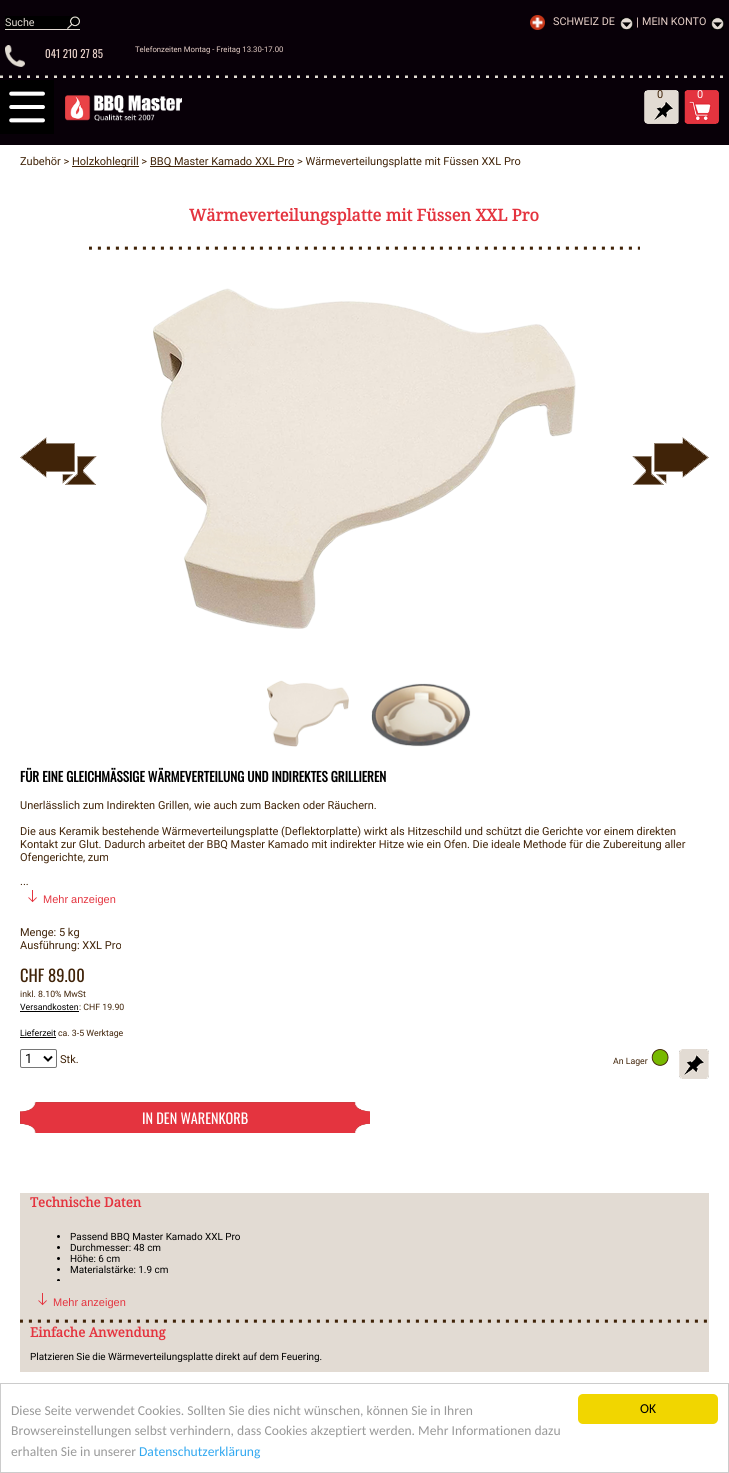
import math
import cairocffi as cairo

surface = cairo.ImageSurface(cairo.FORMAT_RGB24, 729, 1473)
cr = cairo.Context(surface)
options = cairo.FontOptions()
options.set_hint_metrics(cairo.HINT_METRICS_OFF)
options.set_hint_style(cairo.HINT_STYLE_NONE)
cr.set_font_options(options)
cr.set_miter_limit(4)


def use_color(code):
    cr.set_source_rgb(*(v / 255 for v in bytes.fromhex(code[-6:])))


def round_rect(x, y, w, h, r):
    cr.new_sub_path()
    for i, (u, v) in enumerate([(x + w - r, y + h - r), (x + r, y + h - r), (x + r, y + r), (x + w - r, y + r)]):
        cr.arc(u, v, r, i * math.pi / 2, (i + 1) * math.pi / 2)
    cr.close_path()


def picture(path, x, y, w, h):
    cr.save()
    cr.set_source_surface(cairo.ImageSurface.create_from_png(path), x, y)
    cr.rectangle(x, y, w, h)
    cr.fill()
    cr.restore()


use_color("#ffffff")
cr.paint()
use_color("#080008")
cr.rectangle(0, 0, 729, 145)
cr.fill()
use_color("#000000")
cr.rectangle(5, 16, 75, 13)
cr.fill()
picture("img1.png", 67, 16, 13, 13)
use_color("#e2dbd3")
cr.rectangle(5, 29, 75, 1)
cr.fill()
cr.select_font_face("Roboto")
cr.set_font_size(10.75)
cr.move_to(5, 26)
cr.show_text("Suche")
picture("img2.png", 530, 15, 15, 15)
use_color("#e7d0c8")
cr.move_to(553, 25)
cr.show_text("SCHWEIZ DE")
picture("img3.png", 620, 17, 13, 13)
cr.set_font_size(12)
cr.move_to(636, 26)
cr.show_text("|")
cr.set_font_size(10.75)
cr.move_to(642, 25)
cr.show_text("MEIN KONTO")
picture("img3.png", 711, 17, 13, 13)
picture("img4.png", 5, 45, 20, 22)
cr.select_font_face("Oswald")
cr.set_font_size(11)
cr.move_to(45, 58)
cr.show_text("041 210 27 85")
cr.select_font_face("Roboto")
cr.set_font_size(7.75)
cr.move_to(135, 52)
cr.show_text("Telefonzeiten Montag - Freitag 13.30-17.00")
picture("img5.png", 0, 75, 723, 3)
picture("img6.png", 0, 80, 54, 54)
picture("img7.png", 65, 95, 117, 26)
picture("img8.png", 644, 90, 35, 34)
cr.set_font_size(11)
use_color("#402308")
cr.move_to(657, 98)
cr.show_text("0")
picture("img9.png", 684, 90, 35, 34)
use_color("#ffffff")
cr.move_to(697, 98)
cr.show_text("0")
use_color("#402308")
cr.move_to(20, 165)
cr.show_text("Zubehör >")
cr.rectangle(72, 166, 67, 1)
cr.fill()
cr.move_to(72, 165)
cr.show_text("Holzkohlegrill >")
cr.rectangle(150, 166, 144, 1)
cr.fill()
cr.move_to(150, 165)
cr.show_text("BBQ Master Kamado XXL Pro > Wärmeverteilungsplatte mit Füssen XXL Pro")
cr.select_font_face("Noto Serif", cairo.FONT_SLANT_NORMAL, cairo.FONT_WEIGHT_BOLD)
cr.set_font_size(16.5)
use_color("#e4343f")
cr.move_to(189, 221)
cr.show_text("Wärmeverteilungsplatte mit Füssen XXL Pro")
picture("img10.png", 89, 246, 551, 4)
picture("img11.png", 20, 437, 77, 48)
picture("img12.png", 153, 288, 423, 341)
picture("img13.png", 632, 437, 77, 48)
picture("img14.png", 267, 680, 82, 67)
picture("img15.png", 371, 683, 100, 64)
cr.select_font_face("Oswald", cairo.FONT_SLANT_NORMAL, cairo.FONT_WEIGHT_BOLD)
cr.set_font_size(13.2)
use_color("#000000")
cr.move_to(20, 782)
cr.show_text("FÜR EINE GLEICHMÄSSIGE WÄRMEVERTEILUNG UND INDIREKTES GRILLIEREN")
cr.select_font_face("Roboto")
cr.set_font_size(11)
use_color("#402308")
cr.move_to(20, 809)
cr.show_text("Unerlässlich zum Indirekten Grillen, wie auch zum Backen oder Räuchern.")
cr.move_to(20, 835)
cr.show_text("Die aus Keramik bestehende Wärmeverteilungsplatte (Deflektorplatte) wirkt als Hitzeschild und schützt die Gerichte vor einem direkten")
cr.move_to(20, 848)
cr.show_text("Kontakt zur Glut. Dadurch arbeitet der BBQ Master Kamado mit indirekter Hitze wie ein Ofen. Die ideale Methode für die Zubereitung aller")
cr.move_to(20, 861)
cr.show_text("Ofengerichte, zum")
cr.move_to(20, 885)
cr.show_text("...")
picture("img16.png", 28, 890, 9, 13)
cr.select_font_face("Liberation Sans")
use_color("#e4343f")
cr.move_to(43, 903)
cr.show_text("Mehr anzeigen")
cr.select_font_face("Roboto")
use_color("#402308")
cr.move_to(20, 936)
cr.show_text("Menge: 5 kg")
cr.move_to(20, 949)
cr.show_text("Ausführung: XXL Pro")
cr.select_font_face("Oswald")
cr.set_font_size(16.5)
cr.move_to(20, 982)
cr.show_text("CHF 89.00")
cr.select_font_face("Roboto")
cr.set_font_size(8.75)
cr.move_to(20, 997)
cr.show_text("inkl. 8.10% MwSt")
use_color("#000000")
cr.move_to(20, 1010)
cr.show_text("Versandkosten")
cr.rectangle(20, 1011, 59, 1)
cr.fill()
use_color("#402308")
cr.move_to(79, 1010)
cr.show_text(": CHF 19.90")
use_color("#000000")
cr.move_to(20, 1036)
cr.show_text("Lieferzeit")
cr.rectangle(20, 1037, 36, 1)
cr.fill()
use_color("#402308")
cr.move_to(58, 1036)
cr.show_text("ca. 3-5 Werktage")
round_rect(20.5, 1049.5, 36, 18, 1.5)
use_color("#767676")
cr.set_line_width(1)
cr.stroke()
cr.new_path()
cr.move_to(44, 1056.5)
cr.line_to(48, 1060.5)
cr.line_to(52, 1056.5)
use_color("#000000")
cr.set_line_width(2)
cr.stroke()
cr.set_font_size(13)
cr.move_to(25, 1063)
cr.show_text("1")
cr.set_font_size(11)
use_color("#402308")
cr.move_to(60, 1063)
cr.show_text("Stk.")
cr.set_font_size(8.75)
cr.move_to(613, 1064)
cr.show_text("An Lager")
picture("img17.png", 651, 1049, 18, 17)
picture("img18.png", 679, 1049, 30, 30)
picture("img19.png", 20, 1102, 350, 31)
cr.select_font_face("Oswald")
cr.set_font_size(14.25)
use_color("#ffffff")
cr.move_to(142, 1124)
cr.show_text("IN DEN WARENKORB")
use_color("#e2dbd3")
cr.rectangle(20, 1193, 689, 179)
cr.fill()
cr.select_font_face("Noto Serif", cairo.FONT_SLANT_NORMAL, cairo.FONT_WEIGHT_BOLD)
cr.set_font_size(13.2)
use_color("#e4343f")
cr.move_to(30, 1207)
cr.show_text("Technische Daten")
use_color("#000000")
cr.new_path()
cr.arc(58.5, 1236.5, 1.5, 0, 2 * math.pi)
cr.fill()
cr.select_font_face("Roboto")
cr.set_font_size(9.9)
cr.move_to(70, 1240)
cr.show_text("Passend BBQ Master Kamado XXL Pro")
cr.new_path()
cr.arc(58.5, 1247.5, 1.5, 0, 2 * math.pi)
cr.fill()
cr.move_to(70, 1251)
cr.show_text("Durchmesser: 48 cm")
cr.new_path()
cr.arc(58.5, 1258.5, 1.5, 0, 2 * math.pi)
cr.fill()
cr.move_to(70, 1262)
cr.show_text("Höhe: 6 cm")
cr.new_path()
cr.arc(58.5, 1269.5, 1.5, 0, 2 * math.pi)
cr.fill()
cr.move_to(70, 1273)
cr.show_text("Materialstärke: 1.9 cm")
cr.save()
cr.rectangle(30, 1221, 620, 60)
cr.clip()
cr.arc(58.5, 1280.5, 1.5, 0, 2 * math.pi)
cr.fill()
cr.restore()
picture("img20.png", 38, 1293, 9, 13)
cr.select_font_face("Liberation Sans")
cr.set_font_size(11)
use_color("#e4343f")
cr.move_to(53, 1306)
cr.show_text("Mehr anzeigen")
picture("img21.png", 20, 1319, 687, 4)
cr.select_font_face("Noto Serif", cairo.FONT_SLANT_NORMAL, cairo.FONT_WEIGHT_BOLD)
cr.set_font_size(13.2)
cr.move_to(30, 1337)
cr.show_text("Einfache Anwendung")
cr.select_font_face("Roboto")
cr.set_font_size(9.9)
use_color("#000000")
cr.move_to(30, 1360)
cr.show_text("Platzieren Sie die Wärmeverteilungsplatte direkt auf dem Feuering.")
cr.rectangle(0.5, 1383.5, 728, 89)
use_color("#cccccc")
cr.set_line_width(1)
cr.stroke()
cr.select_font_face("Carlito")
cr.set_font_size(13.6)
use_color("#999999")
cr.move_to(11, 1415)
cr.show_text("Diese Seite verwendet Cookies. Sollten Sie dies nicht wünschen, können Sie in Ihren")
cr.move_to(11, 1435)
cr.show_text("Browsereinstellungen selbst verhindern, dass Cookies akzeptiert werden. Mehr Informationen dazu")
cr.move_to(11, 1456)
cr.show_text("erhalten Sie in unserer")
use_color("#31a8f0")
cr.move_to(139, 1456)
cr.show_text("Datenschutzerklärung")
use_color("#f1d600")
round_rect(578, 1394, 140, 30, 5)
cr.fill()
use_color("#000000")
cr.move_to(640, 1413)
cr.show_text("OK")
surface.write_to_png("result.png")
